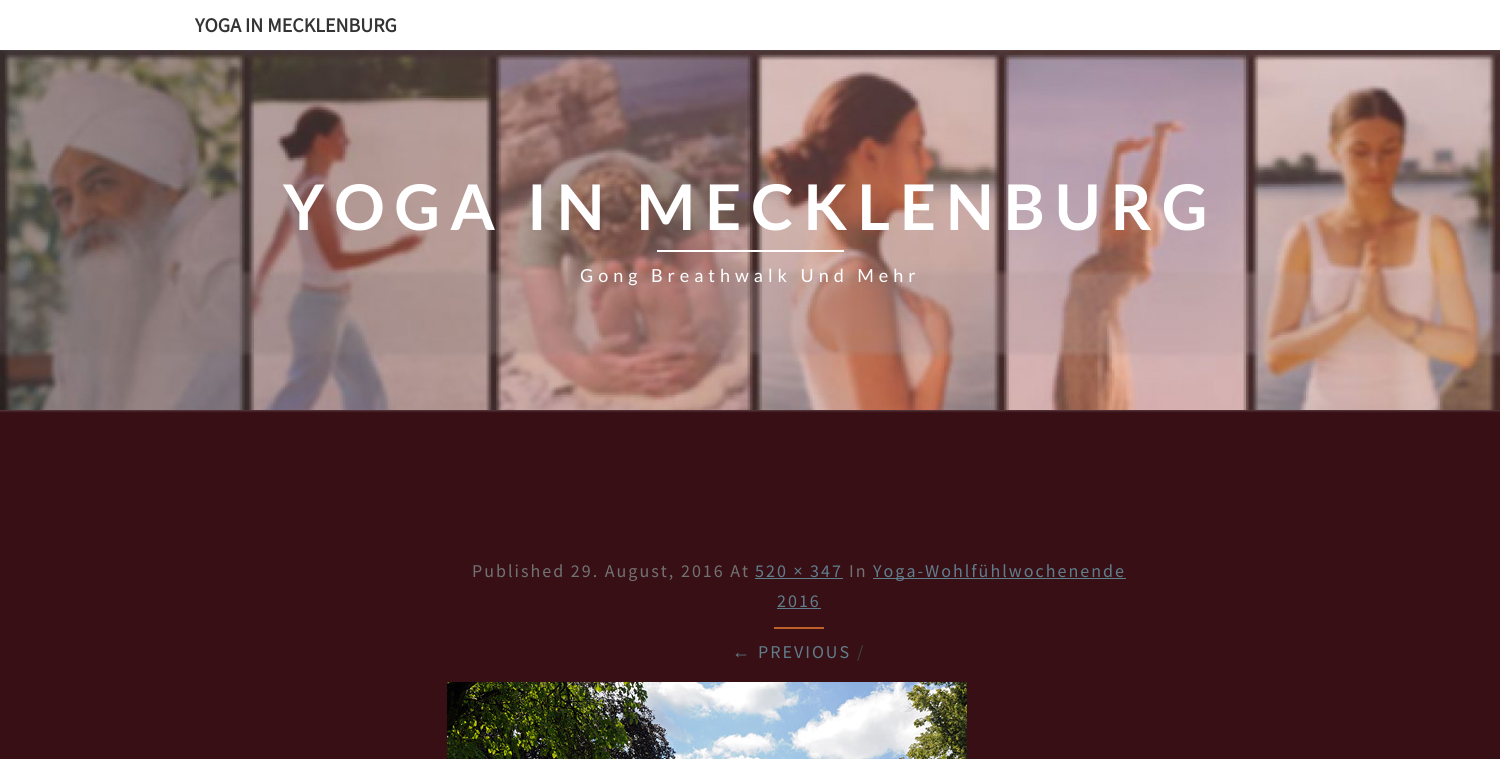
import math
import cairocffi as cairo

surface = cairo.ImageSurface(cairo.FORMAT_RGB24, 1500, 759)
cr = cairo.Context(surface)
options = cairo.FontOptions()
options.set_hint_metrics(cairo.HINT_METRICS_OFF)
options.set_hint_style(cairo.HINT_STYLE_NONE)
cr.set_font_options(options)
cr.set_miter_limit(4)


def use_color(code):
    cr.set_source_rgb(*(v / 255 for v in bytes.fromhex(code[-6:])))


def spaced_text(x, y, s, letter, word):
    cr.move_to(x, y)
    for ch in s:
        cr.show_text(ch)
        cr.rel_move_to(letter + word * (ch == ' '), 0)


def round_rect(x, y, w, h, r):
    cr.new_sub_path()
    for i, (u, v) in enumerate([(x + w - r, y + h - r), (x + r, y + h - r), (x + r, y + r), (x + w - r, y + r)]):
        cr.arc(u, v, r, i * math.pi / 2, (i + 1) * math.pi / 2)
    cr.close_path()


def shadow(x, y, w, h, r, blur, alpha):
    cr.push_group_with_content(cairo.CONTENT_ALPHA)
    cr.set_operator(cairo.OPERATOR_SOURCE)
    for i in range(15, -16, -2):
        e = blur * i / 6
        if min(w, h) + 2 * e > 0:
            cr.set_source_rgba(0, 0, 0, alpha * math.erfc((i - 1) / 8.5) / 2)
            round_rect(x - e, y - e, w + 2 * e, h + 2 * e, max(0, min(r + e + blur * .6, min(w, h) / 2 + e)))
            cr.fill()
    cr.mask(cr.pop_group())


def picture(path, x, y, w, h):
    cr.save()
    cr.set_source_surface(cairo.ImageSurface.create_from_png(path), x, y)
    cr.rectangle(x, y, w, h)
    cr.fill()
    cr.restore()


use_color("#370f15")
cr.paint()
use_color("#b6b6b6")
shadow(-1, 49, 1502, 362, 0, 1, 0.3)
picture("img1.png", 0, 50, 1500, 360)
use_color("#646464")
shadow(0, 1, 1500, 50, 0, 0.5, 0.2)
use_color("#ffffff")
cr.rectangle(0, 0, 1500, 50)
cr.fill()
cr.select_font_face("Source Sans Pro", cairo.FONT_SLANT_NORMAL, cairo.FONT_WEIGHT_BOLD)
cr.set_font_size(20)
use_color("#333333")
cr.move_to(195, 32)
cr.show_text("YOGA IN MECKLENBURG")
cr.select_font_face("Lato", cairo.FONT_SLANT_NORMAL, cairo.FONT_WEIGHT_BOLD)
cr.set_font_size(63)
use_color("#ffffff")
spaced_text(283, 230, "YOGA IN MECKLENBURG", 10, 0)
cr.rectangle(657, 250, 187, 2)
cr.fill()
cr.select_font_face("Lato")
cr.set_font_size(18)
spaced_text(580, 282, "Gong Breathwalk Und Mehr", 5, 0)
cr.select_font_face("Source Sans Pro")
use_color("#727272")
spaced_text(472, 577, "Published 29. August, 2016 At", 2, 0)
use_color("#607d8b")
spaced_text(755, 577, "520 × 347", 2, 0)
cr.rectangle(755, 578, 88, 1)
cr.fill()
use_color("#727272")
spaced_text(849, 577, "In", 2, 0)
use_color("#607d8b")
cr.rectangle(873, 578, 253, 1)
cr.fill()
spaced_text(873, 577, "Yoga-Wohlfühlwochenende", 2, 0)
spaced_text(777, 607, "2016", 2, 0)
cr.rectangle(777, 608, 44, 1)
cr.fill()
use_color("#bf612b")
cr.rectangle(774, 627, 50, 2)
cr.fill()
cr.select_font_face("Liberation Sans")
use_color("#607d8b")
spaced_text(732, 658, "←", 2, 0)
cr.select_font_face("Source Sans Pro")
spaced_text(758, 658, "PREVIOUS", 2, 0)
use_color("#424242")
spaced_text(857, 658, "/", 2, 0)
picture("img2.png", 447, 682, 520, 77)
surface.write_to_png("result.png")
